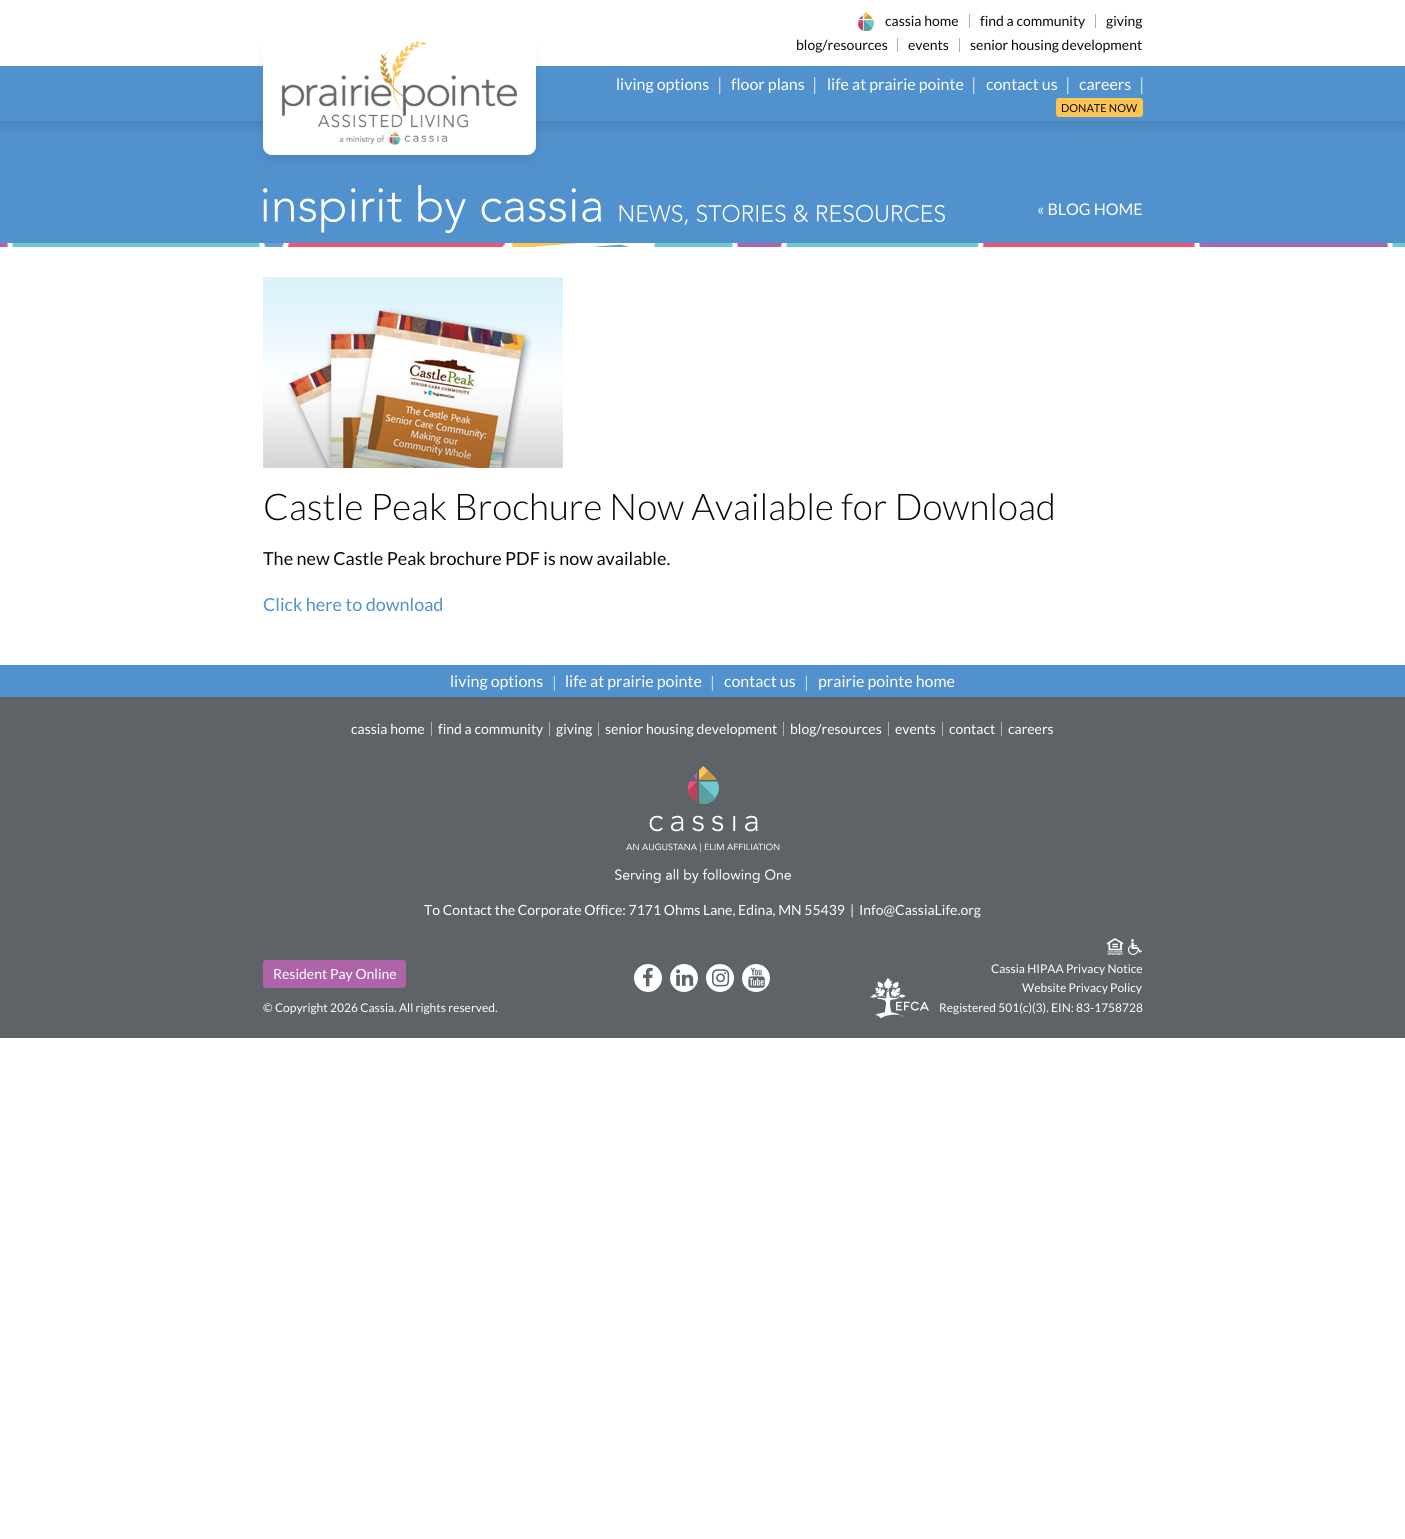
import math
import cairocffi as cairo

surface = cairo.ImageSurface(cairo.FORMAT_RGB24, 1405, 1539)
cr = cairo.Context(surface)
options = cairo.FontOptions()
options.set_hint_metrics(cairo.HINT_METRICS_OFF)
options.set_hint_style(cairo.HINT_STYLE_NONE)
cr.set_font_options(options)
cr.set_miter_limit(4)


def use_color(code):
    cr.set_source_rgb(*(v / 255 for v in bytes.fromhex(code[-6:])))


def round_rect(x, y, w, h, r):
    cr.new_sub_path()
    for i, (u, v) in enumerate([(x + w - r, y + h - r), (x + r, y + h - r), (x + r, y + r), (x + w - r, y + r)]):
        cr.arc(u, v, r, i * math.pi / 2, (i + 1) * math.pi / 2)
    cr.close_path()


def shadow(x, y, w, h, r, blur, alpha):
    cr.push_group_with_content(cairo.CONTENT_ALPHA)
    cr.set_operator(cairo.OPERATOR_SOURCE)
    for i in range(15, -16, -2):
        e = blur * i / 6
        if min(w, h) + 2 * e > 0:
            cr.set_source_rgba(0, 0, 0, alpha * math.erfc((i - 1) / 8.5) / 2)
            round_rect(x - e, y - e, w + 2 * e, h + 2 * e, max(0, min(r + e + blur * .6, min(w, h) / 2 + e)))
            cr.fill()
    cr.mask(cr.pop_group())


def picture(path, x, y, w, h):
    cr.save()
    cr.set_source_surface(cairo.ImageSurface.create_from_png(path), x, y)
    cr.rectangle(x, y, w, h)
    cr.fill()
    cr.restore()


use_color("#ffffff")
cr.paint()
use_color("#5191cd")
cr.rectangle(0, 121, 1405, 122)
cr.fill()
cr.save()
cr.rectangle(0, 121, 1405, 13)
cr.clip()
use_color("#0a0a0a")
shadow(0, 0, 1405, 121, 0, 10, 0.2)
cr.restore()
cr.rectangle(0, 66, 1405, 55)
cr.fill()
picture("img4.png", 263, 185, 682, 48)
use_color("#0a0a0a")
shadow(273, 51, 253, 104, 0, 10, 0.15)
use_color("#ffffff")
cr.new_path()
cr.move_to(263, 31)
cr.line_to(536, 31)
cr.line_to(536, 146)
cr.curve_to(536, 151, 532, 155, 527, 155)
cr.line_to(272, 155)
cr.curve_to(267, 155, 263, 151, 263, 146)
cr.close_path()
cr.fill()
picture("img1.png", 281, 41, 236, 104)
picture("img2.png", 858, 12, 16, 19)
cr.select_font_face("Lato")
cr.set_font_size(14)
use_color("#0a0a0a")
cr.move_to(885, 26)
cr.show_text("cassia home")
use_color("#aeb1b3")
cr.rectangle(969, 14, 1, 14)
cr.fill()
use_color("#0a0a0a")
cr.move_to(980, 26)
cr.show_text("find a community")
use_color("#aeb1b3")
cr.rectangle(1095, 14, 1, 14)
cr.fill()
use_color("#0a0a0a")
cr.move_to(1106, 26)
cr.show_text("giving")
cr.move_to(796, 50)
cr.show_text("blog/resources")
use_color("#aeb1b3")
cr.rectangle(897, 38, 1, 14)
cr.fill()
use_color("#0a0a0a")
cr.move_to(908, 50)
cr.show_text("events")
use_color("#aeb1b3")
cr.rectangle(959, 38, 1, 14)
cr.fill()
use_color("#0a0a0a")
cr.move_to(970, 50)
cr.show_text("senior housing development")
cr.set_font_size(16)
use_color("#ffffff")
cr.move_to(616, 90)
cr.show_text("living options")
cr.set_font_size(18)
use_color("#cbdef0")
cr.move_to(717, 91)
cr.show_text("|")
cr.set_font_size(16)
use_color("#ffffff")
cr.move_to(731, 90)
cr.show_text("floor plans")
cr.set_font_size(18)
use_color("#cbdef0")
cr.move_to(812, 91)
cr.show_text("|")
cr.set_font_size(16)
use_color("#ffffff")
cr.move_to(827, 90)
cr.show_text("life at prairie pointe")
cr.set_font_size(18)
use_color("#cbdef0")
cr.move_to(971, 91)
cr.show_text("|")
cr.set_font_size(16)
use_color("#ffffff")
cr.move_to(986, 90)
cr.show_text("contact us")
cr.set_font_size(18)
use_color("#cbdef0")
cr.move_to(1065, 91)
cr.show_text("|")
cr.set_font_size(16)
use_color("#ffffff")
cr.move_to(1079, 90)
cr.show_text("careers")
cr.set_font_size(18)
use_color("#cbdef0")
cr.move_to(1139, 91)
cr.show_text("|")
use_color("#fec553")
round_rect(1056, 98, 87, 19, 3)
cr.fill()
cr.set_font_size(11)
use_color("#0a0a0a")
cr.move_to(1061, 112)
cr.show_text("DONATE NOW")
picture("img3.png", 0, 243, 1405, 4)
cr.set_font_size(16)
use_color("#ffffff")
cr.move_to(1037, 215)
cr.show_text("« BLOG HOME")
picture("img5.png", 263, 277, 300, 191)
cr.select_font_face("Lato Light")
cr.set_font_size(36.8)
use_color("#0a0a0a")
cr.move_to(263, 520)
cr.show_text("Castle Peak Brochure Now Available for Download")
cr.select_font_face("Lato")
cr.set_font_size(18)
cr.move_to(263, 565)
cr.show_text("The new Castle Peak brochure PDF is now available.")
use_color("#5191cd")
cr.move_to(263, 611)
cr.show_text("Click here to download")
cr.rectangle(0, 665, 1405, 32)
cr.fill()
cr.set_font_size(16)
use_color("#ffffff")
cr.move_to(450, 687)
cr.show_text("living options")
use_color("#cbdef0")
cr.move_to(552, 688)
cr.show_text("|")
use_color("#ffffff")
cr.move_to(565, 687)
cr.show_text("life at prairie pointe")
use_color("#cbdef0")
cr.move_to(710, 688)
cr.show_text("|")
use_color("#ffffff")
cr.move_to(724, 687)
cr.show_text("contact us")
use_color("#cbdef0")
cr.move_to(804, 688)
cr.show_text("|")
use_color("#ffffff")
cr.move_to(818, 687)
cr.show_text("prairie pointe home")
use_color("#5d6367")
cr.rectangle(0, 697, 1405, 341)
cr.fill()
cr.set_font_size(14)
use_color("#ffffff")
cr.move_to(351, 734)
cr.show_text("cassia home")
use_color("#aeb1b3")
cr.rectangle(431, 722, 1, 14)
cr.fill()
use_color("#ffffff")
cr.move_to(438, 734)
cr.show_text("find a community")
use_color("#aeb1b3")
cr.rectangle(549, 722, 1, 14)
cr.fill()
use_color("#ffffff")
cr.move_to(556, 734)
cr.show_text("giving")
use_color("#aeb1b3")
cr.rectangle(598, 722, 1, 14)
cr.fill()
use_color("#ffffff")
cr.move_to(605, 734)
cr.show_text("senior housing development")
use_color("#aeb1b3")
cr.rectangle(783, 722, 1, 14)
cr.fill()
use_color("#ffffff")
cr.move_to(790, 734)
cr.show_text("blog/resources")
use_color("#aeb1b3")
cr.rectangle(888, 722, 1, 14)
cr.fill()
use_color("#ffffff")
cr.move_to(895, 734)
cr.show_text("events")
use_color("#aeb1b3")
cr.rectangle(942, 722, 1, 14)
cr.fill()
use_color("#ffffff")
cr.move_to(949, 734)
cr.show_text("contact")
use_color("#aeb1b3")
cr.rectangle(1001, 722, 1, 14)
cr.fill()
use_color("#ffffff")
cr.move_to(1008, 734)
cr.show_text("careers")
picture("img6.png", 615, 766, 176, 117)
cr.move_to(424, 915)
cr.show_text("To Contact the Corporate Office: 7171 Ohms Lane, Edina, MN 55439")
cr.move_to(850, 915)
cr.show_text("|")
cr.move_to(859, 915)
cr.show_text("Info@CassiaLife.org")
use_color("#ae64a8")
round_rect(263, 960, 143, 28, 3)
cr.fill()
use_color("#ffffff")
cr.move_to(273, 979)
cr.show_text("Resident Pay Online")
cr.set_font_size(12)
cr.move_to(263, 1012)
cr.show_text("© Copyright 2026 Cassia. All rights reserved.")
cr.new_path()
cr.arc(648, 978, 14, 0, 2 * math.pi)
cr.fill()
picture("img7.png", 643, 967, 10, 20)
cr.arc(684, 978, 14, 0, 2 * math.pi)
cr.fill()
picture("img8.png", 676, 969, 18, 17)
cr.arc(720, 978, 14, 0, 2 * math.pi)
cr.fill()
picture("img9.png", 712, 969, 18, 18)
cr.arc(756, 978, 14, 0, 2 * math.pi)
cr.fill()
picture("img10.png", 748, 967, 17, 21)
picture("img11.png", 870, 978, 59, 40)
picture("img12.png", 1107, 938, 35, 17)
cr.move_to(991, 973)
cr.show_text("Cassia HIPAA Privacy Notice")
cr.move_to(1022, 992)
cr.show_text("Website Privacy Policy")
cr.move_to(939, 1012)
cr.show_text("Registered 501(c)(3). EIN: 83-1758728")
surface.write_to_png("result.png")
